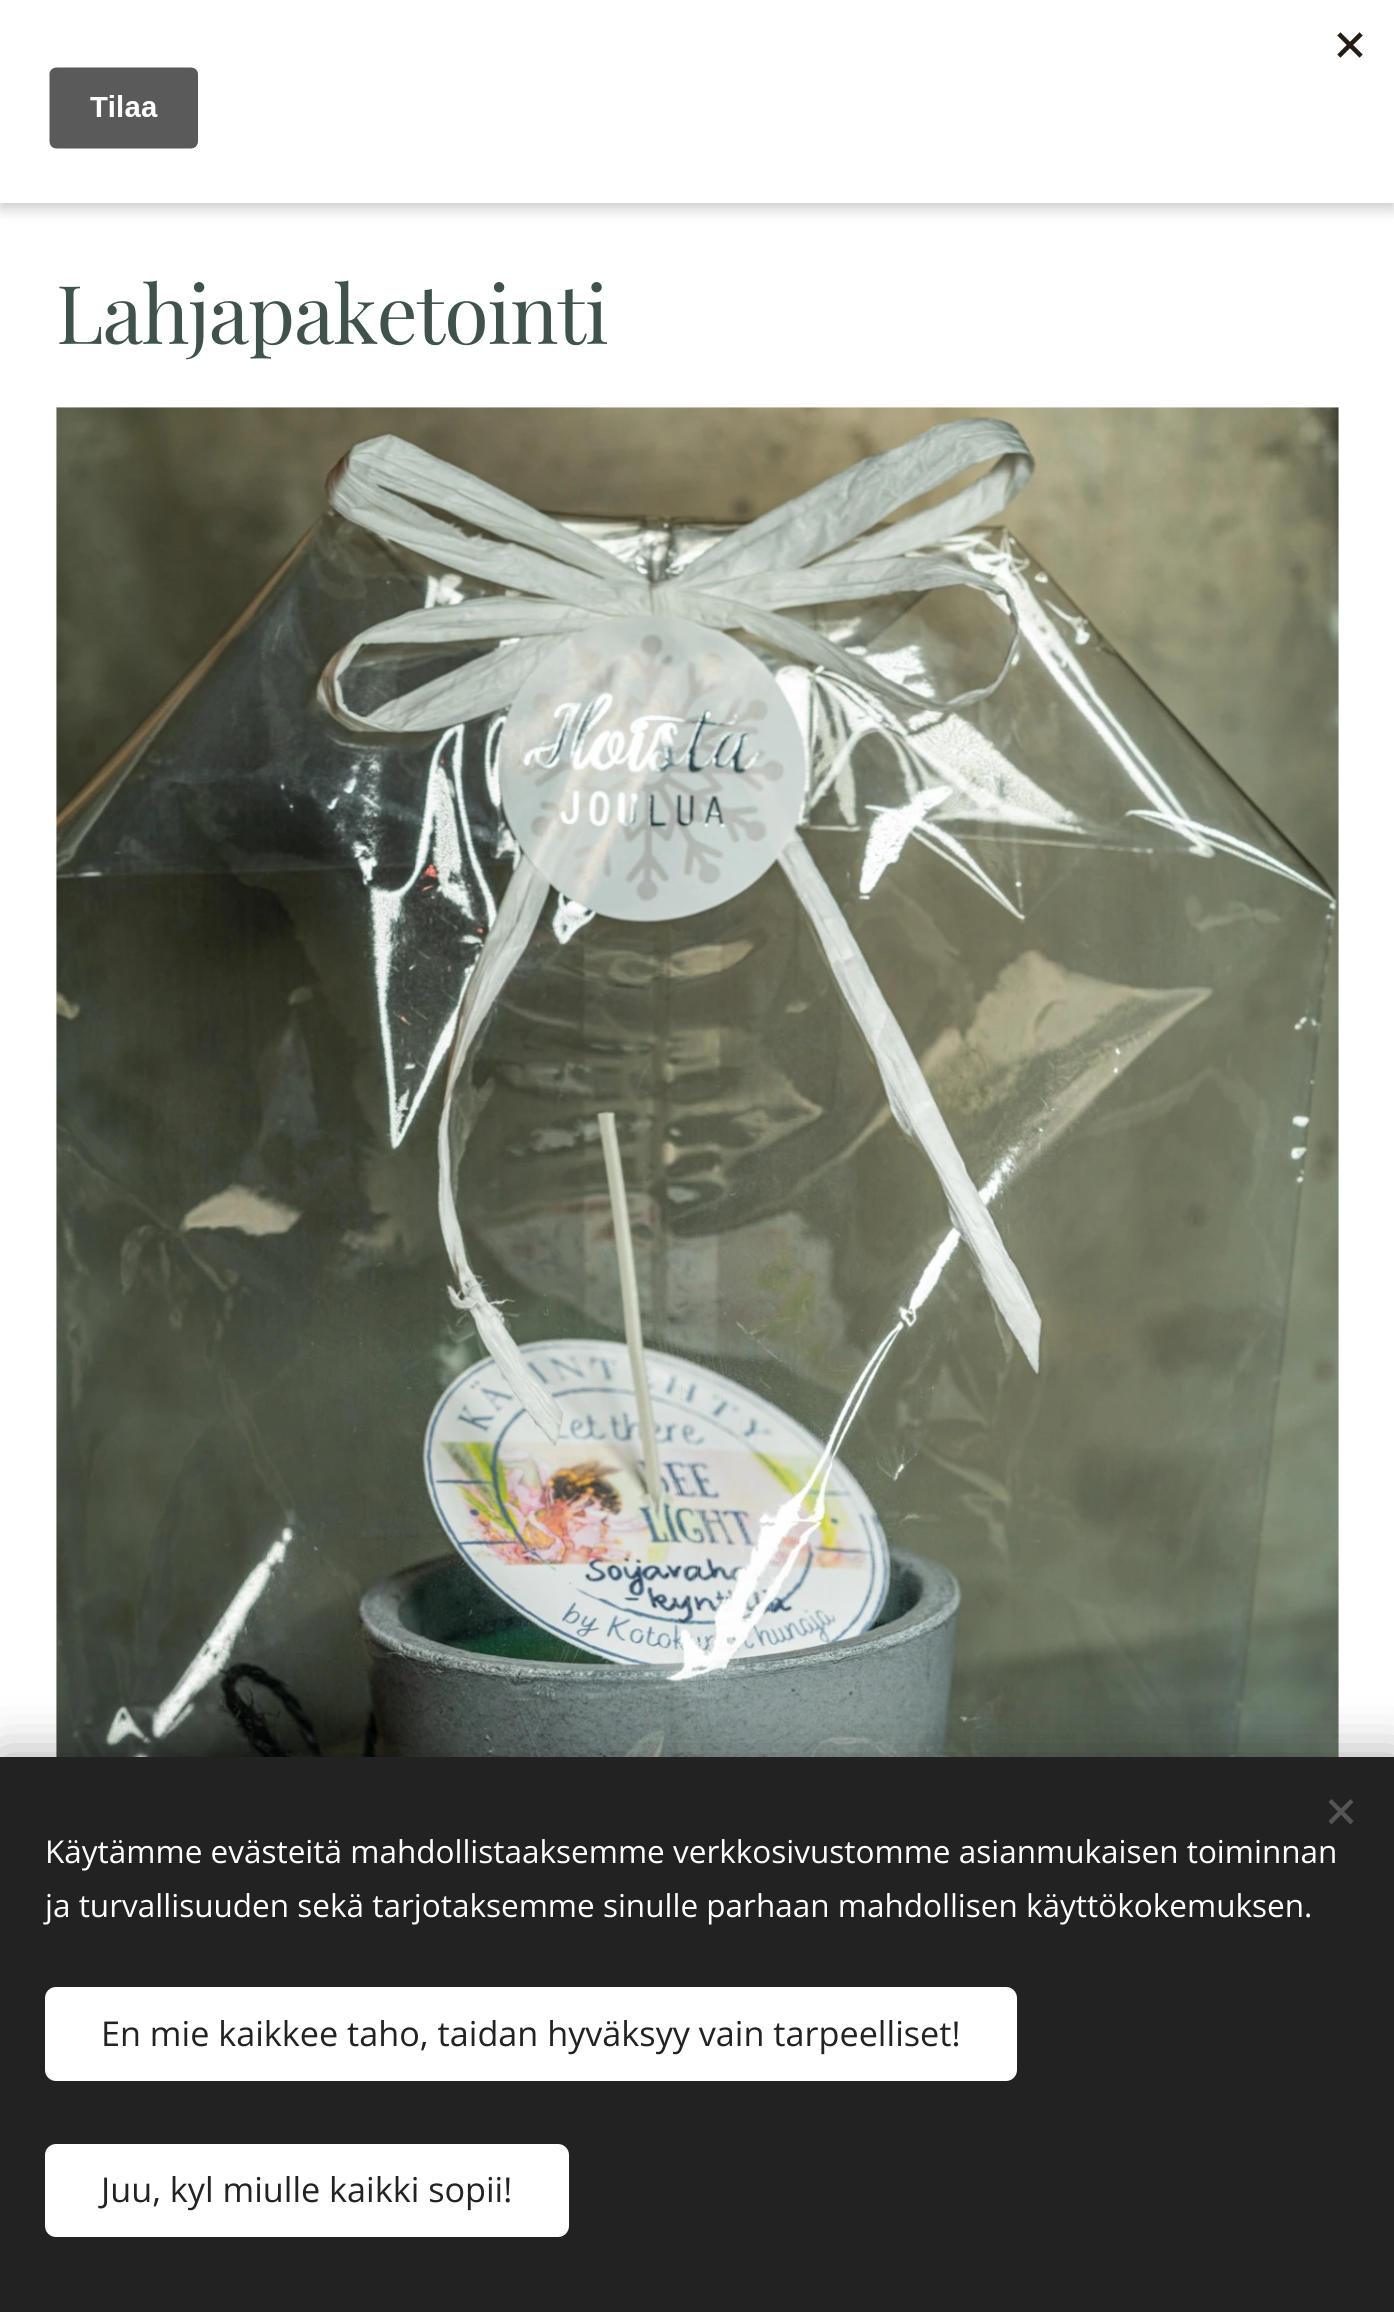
import math
import cairocffi as cairo

surface = cairo.ImageSurface(cairo.FORMAT_RGB24, 1394, 2312)
cr = cairo.Context(surface)
options = cairo.FontOptions()
options.set_hint_metrics(cairo.HINT_METRICS_OFF)
options.set_hint_style(cairo.HINT_STYLE_NONE)
cr.set_font_options(options)
cr.set_miter_limit(4)


def use_color(code):
    cr.set_source_rgb(*(v / 255 for v in bytes.fromhex(code[-6:])))


def spaced_text(x, y, s, letter, word):
    cr.move_to(x, y)
    for ch in s:
        cr.show_text(ch)
        cr.rel_move_to(letter + word * (ch == ' '), 0)


def round_rect(x, y, w, h, r):
    cr.new_sub_path()
    for i, (u, v) in enumerate([(x + w - r, y + h - r), (x + r, y + h - r), (x + r, y + r), (x + w - r, y + r)]):
        cr.arc(u, v, r, i * math.pi / 2, (i + 1) * math.pi / 2)
    cr.close_path()


def shadow(x, y, w, h, r, blur, alpha):
    cr.push_group_with_content(cairo.CONTENT_ALPHA)
    cr.set_operator(cairo.OPERATOR_SOURCE)
    for i in range(15, -16, -2):
        e = blur * i / 6
        if min(w, h) + 2 * e > 0:
            cr.set_source_rgba(0, 0, 0, alpha * math.erfc((i - 1) / 8.5) / 2)
            round_rect(x - e, y - e, w + 2 * e, h + 2 * e, max(0, min(r + e + blur * .6, min(w, h) / 2 + e)))
            cr.fill()
    cr.mask(cr.pop_group())


def picture(path, x, y, w, h):
    cr.save()
    cr.set_source_surface(cairo.ImageSurface.create_from_png(path), x, y)
    cr.rectangle(x, y, w, h)
    cr.fill()
    cr.restore()


use_color("#ffffff")
cr.paint()
use_color("#000000")
shadow(0, 7, 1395, 202, 0, 7, 0.2)
use_color("#ffffff")
cr.rectangle(0, 0, 1394, 203)
cr.fill()
picture("img1.png", 49, 32, 1314, 117)
cr.select_font_face("Playfair Display")
cr.set_font_size(81)
use_color("#3f524c")
spaced_text(56, 344, "Lahjapaketointi", -1.1, 0)
picture("img2.png", 56, 407, 1283, 1350)
use_color("#000000")
shadow(0, 1757, 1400, 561, 0, 28, 0.33)
use_color("#222222")
cr.rectangle(0, 1757, 1394, 555)
cr.fill()
use_color("#555555")
cr.new_path()
cr.move_to(1328.5, 1821)
cr.line_to(1350.5, 1799)
cr.line_to(1353.5, 1802)
cr.line_to(1331.5, 1824.5)
cr.close_path()
cr.fill()
cr.new_path()
cr.move_to(1331.5, 1799)
cr.line_to(1353.5, 1821)
cr.line_to(1350.5, 1824.5)
cr.line_to(1328.5, 1802)
cr.close_path()
cr.fill()
cr.select_font_face("Open Sans")
cr.set_font_size(31.5)
use_color("#ffffff")
cr.move_to(45, 1863)
cr.show_text("Käytämme evästeitä mahdollistaaksemme verkkosivustomme asianmukaisen toiminnan")
cr.move_to(45, 1917)
cr.show_text("ja turvallisuuden sekä tarjotaksemme sinulle parhaan mahdollisen käyttökokemuksen.")
round_rect(45, 1987, 972, 94, 11)
cr.fill()
cr.set_font_size(34.2)
use_color("#222222")
cr.move_to(101, 2046)
cr.show_text("En mie kaikkee taho, taidan hyväksyy vain tarpeelliset!")
use_color("#ffffff")
round_rect(45, 2144, 524, 93, 11)
cr.fill()
use_color("#222222")
cr.move_to(101, 2202)
cr.show_text("Juu, kyl miulle kaikki sopii!")
surface.write_to_png("result.png")
